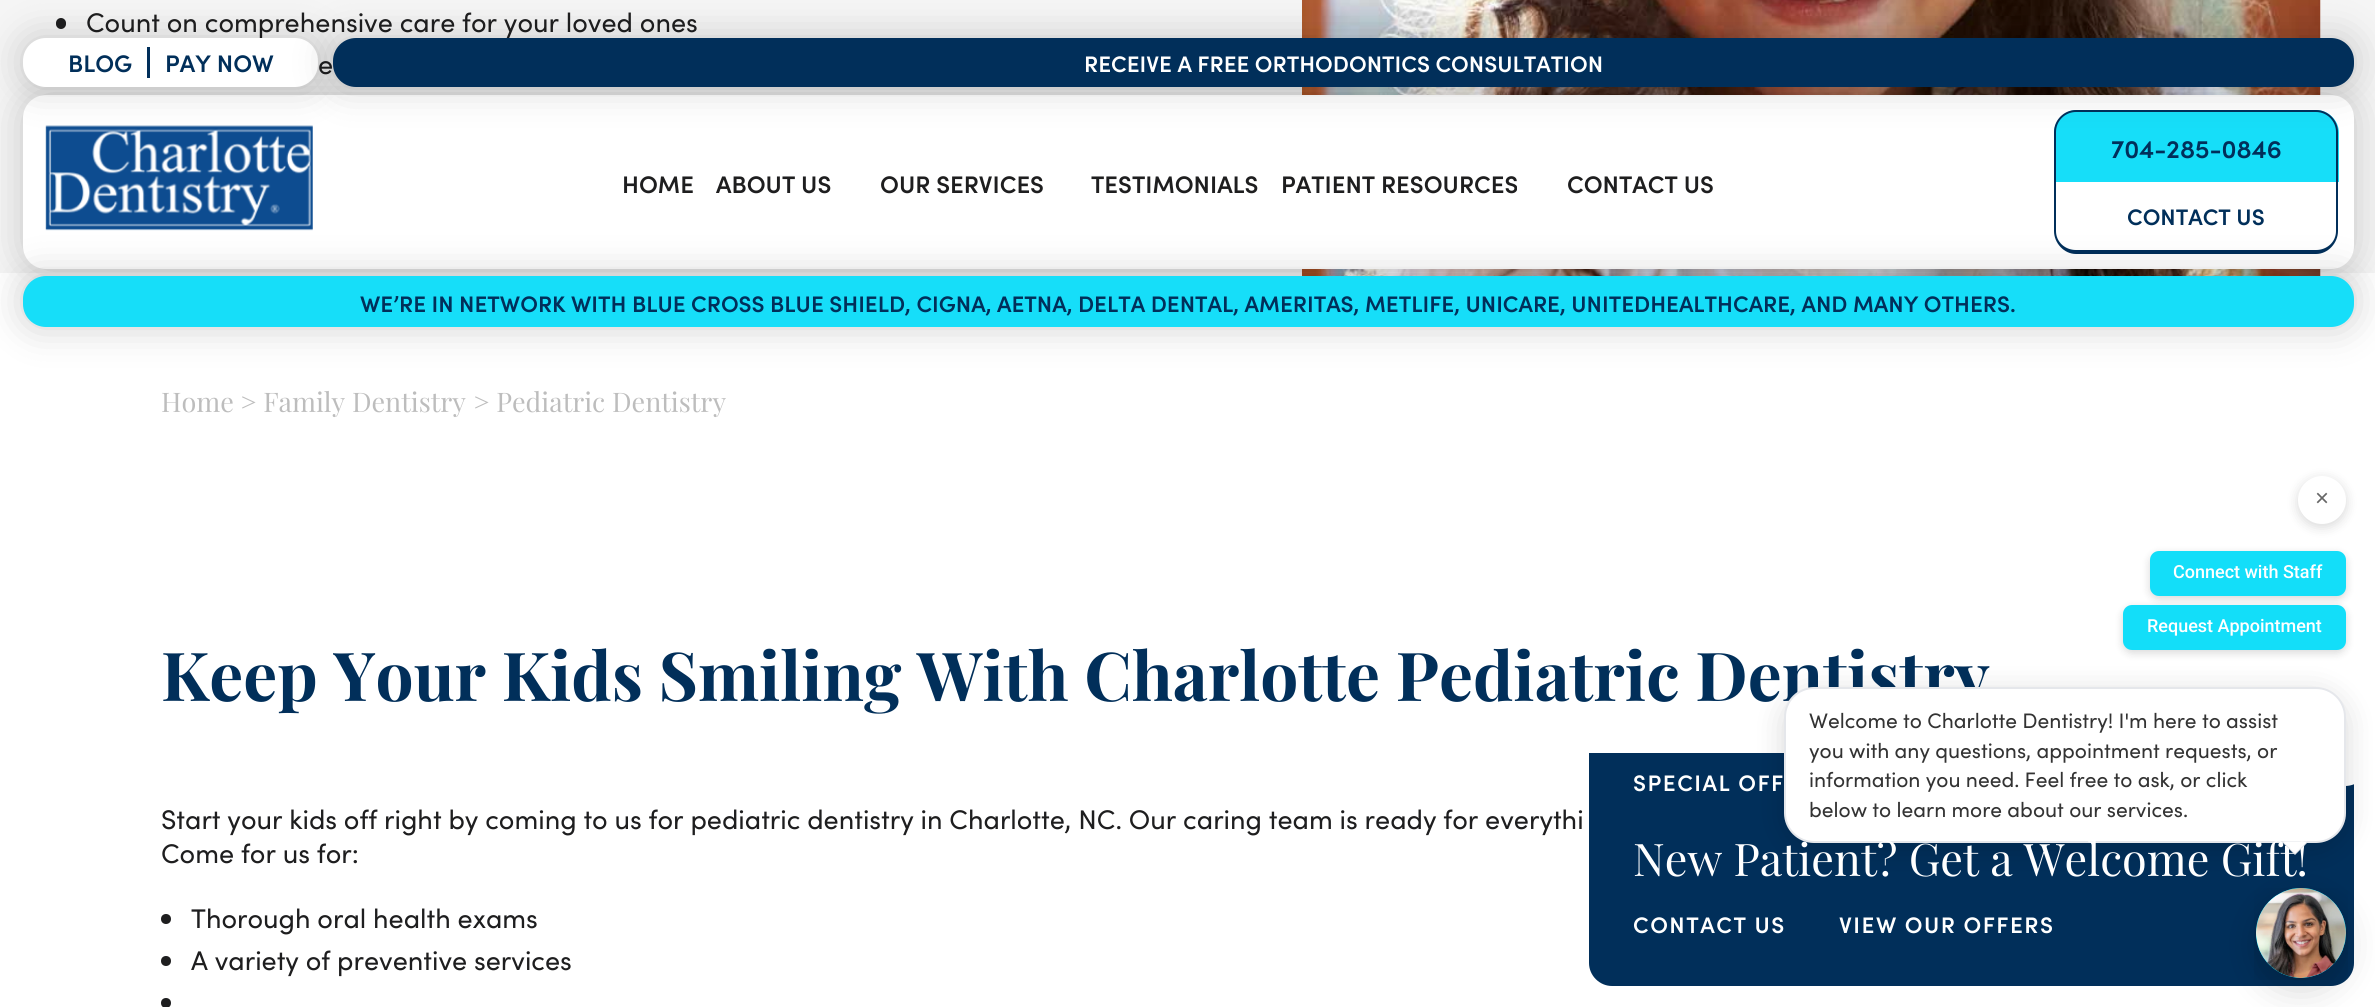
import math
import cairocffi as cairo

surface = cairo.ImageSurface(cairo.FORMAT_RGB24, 2375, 1007)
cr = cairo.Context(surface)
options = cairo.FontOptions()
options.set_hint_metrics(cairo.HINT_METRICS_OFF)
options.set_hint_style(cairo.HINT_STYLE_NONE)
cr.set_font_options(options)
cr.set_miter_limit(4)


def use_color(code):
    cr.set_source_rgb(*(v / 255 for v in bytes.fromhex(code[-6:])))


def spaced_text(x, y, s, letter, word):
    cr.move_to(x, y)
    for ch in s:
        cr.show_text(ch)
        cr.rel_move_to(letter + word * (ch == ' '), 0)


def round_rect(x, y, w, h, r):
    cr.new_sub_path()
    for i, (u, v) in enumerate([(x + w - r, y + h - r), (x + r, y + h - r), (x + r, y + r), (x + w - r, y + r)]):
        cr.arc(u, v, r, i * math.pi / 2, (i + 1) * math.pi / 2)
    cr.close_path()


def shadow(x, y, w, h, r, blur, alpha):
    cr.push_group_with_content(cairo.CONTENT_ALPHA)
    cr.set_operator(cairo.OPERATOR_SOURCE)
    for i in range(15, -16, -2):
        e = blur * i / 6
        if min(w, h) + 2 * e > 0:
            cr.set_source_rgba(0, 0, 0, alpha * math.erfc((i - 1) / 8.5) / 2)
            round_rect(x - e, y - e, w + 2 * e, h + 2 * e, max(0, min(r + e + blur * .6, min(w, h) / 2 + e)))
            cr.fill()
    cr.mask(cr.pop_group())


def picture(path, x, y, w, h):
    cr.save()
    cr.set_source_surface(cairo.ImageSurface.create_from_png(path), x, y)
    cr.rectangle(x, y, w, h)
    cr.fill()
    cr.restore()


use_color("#ffffff")
cr.paint()
use_color("#f5f5f5")
cr.rectangle(0, 0, 2375, 273)
cr.fill()
use_color("#1e1e1f")
round_rect(56, 18, 10, 11, 5)
cr.fill()
cr.select_font_face("Sofia")
cr.set_font_size(27)
cr.move_to(86, 32)
cr.show_text("Count on comprehensive care for your loved ones")
cr.move_to(318, 74)
cr.show_text("e")
picture("img1.png", 1302, 0, 1019, 276)
cr.select_font_face("Playfair Display")
use_color("#bdbdbd")
cr.move_to(161, 412)
cr.show_text("Home")
cr.move_to(240, 412)
cr.show_text("> Family Dentistry")
cr.move_to(473, 412)
cr.show_text("> Pediatric Dentistry")
cr.select_font_face("Playfair Display", cairo.FONT_SLANT_NORMAL, cairo.FONT_WEIGHT_BOLD)
cr.set_font_size(67.5)
use_color("#012f5a")
cr.move_to(161, 701)
cr.show_text("Keep Your Kids Smiling With Charlotte Pediatric Dentistry")
cr.select_font_face("Sofia")
cr.set_font_size(27)
use_color("#1e1e1f")
cr.move_to(161, 829)
cr.show_text("Start your kids off right by coming to us for pediatric dentistry in Charlotte, NC. Our caring team is ready for everythi")
cr.move_to(161, 863)
cr.show_text("Come for us for:")
cr.new_path()
cr.arc(166, 919, 5, 0, 2 * math.pi)
cr.fill()
cr.move_to(191, 928)
cr.show_text("Thorough oral health exams")
cr.new_path()
cr.arc(166, 961, 5, 0, 2 * math.pi)
cr.fill()
cr.move_to(191, 970)
cr.show_text("A variety of preventive services")
cr.new_path()
cr.arc(166, 1003, 5, 0, 2 * math.pi)
cr.fill()
use_color("#000000")
shadow(23, 95, 2331, 174, 23, 19, 0.2)
use_color("#ffffff")
round_rect(23, 95, 2331, 174, 23)
cr.fill()
use_color("#000000")
shadow(23, 38, 295, 49, 23, 19, 0.2)
use_color("#ffffff")
round_rect(23, 38, 295, 49, 23)
cr.fill()
cr.select_font_face("Sofia SemiBold")
cr.set_font_size(24)
use_color("#012f5a")
cr.move_to(68, 72)
cr.show_text("BLOG")
cr.rectangle(147, 47, 3, 31)
cr.fill()
cr.move_to(165, 72)
cr.show_text("PAY NOW")
picture("img2.png", 45, 125, 268, 106)
use_color("#16def9")
cr.new_path()
cr.move_to(2077, 110)
cr.line_to(2316, 110)
cr.curve_to(2328.5, 110, 2339, 120.5, 2339, 133)
cr.line_to(2339, 182)
cr.line_to(2054, 182)
cr.line_to(2054, 133)
cr.curve_to(2054, 120.5, 2064.5, 110, 2077, 110)
cr.close_path()
cr.fill()
use_color("#012f5a")
cr.set_fill_rule(cairo.FILL_RULE_EVEN_ODD)
cr.new_path()
cr.move_to(2076, 110)
cr.line_to(2316, 110)
cr.curve_to(2328, 110, 2338, 120, 2338, 132)
cr.line_to(2338, 182)
cr.line_to(2054, 182)
cr.line_to(2054, 132)
cr.curve_to(2054, 120, 2064, 110, 2076, 110)
cr.close_path()
cr.move_to(2076, 112)
cr.line_to(2316, 112)
cr.curve_to(2327, 112, 2336, 121, 2336, 132)
cr.line_to(2336, 182)
cr.line_to(2056, 182)
cr.line_to(2056, 132)
cr.curve_to(2056, 121, 2065, 112, 2076, 112)
cr.close_path()
cr.fill()
use_color("#000000")
shadow(333, 38, 2021, 49, 23, 19, 0.2)
use_color("#012f5a")
round_rect(333, 38, 2021, 49, 23)
cr.fill()
cr.set_font_size(22.5)
use_color("#ffffff")
cr.move_to(1084, 72)
cr.show_text("RECEIVE A FREE ORTHODONTICS CONSULTATION")
cr.set_font_size(24)
use_color("#1e1e1f")
cr.move_to(622, 193)
cr.show_text("HOME")
cr.move_to(716, 193)
cr.show_text("ABOUT US")
cr.move_to(880, 193)
cr.show_text("OUR SERVICES")
cr.move_to(1091, 193)
cr.show_text("TESTIMONIALS")
cr.move_to(1281, 193)
cr.show_text("PATIENT RESOURCES")
cr.move_to(1567, 193)
cr.show_text("CONTACT US")
cr.set_font_size(25.5)
use_color("#012f5a")
cr.move_to(2111, 158)
cr.show_text("704-285-0846")
cr.new_path()
cr.move_to(2054, 182)
cr.line_to(2338, 182)
cr.line_to(2338, 231)
cr.curve_to(2338, 243, 2328, 254, 2316, 254)
cr.line_to(2076, 254)
cr.curve_to(2064, 254, 2054, 243, 2054, 231)
cr.close_path()
cr.move_to(2056, 182)
cr.line_to(2336, 182)
cr.line_to(2336, 231)
cr.curve_to(2336, 242, 2327, 250, 2316, 250)
cr.line_to(2076, 250)
cr.curve_to(2065, 250, 2056, 242, 2056, 231)
cr.close_path()
cr.fill()
cr.set_font_size(22.5)
cr.move_to(2127, 225)
cr.show_text("CONTACT US")
use_color("#000000")
shadow(23, 276, 2331, 51, 23, 19, 0.2)
use_color("#16def9")
round_rect(23, 276, 2331, 51, 23)
cr.fill()
use_color("#012f5a")
cr.move_to(360, 312)
cr.show_text("WE’RE IN NETWORK WITH BLUE CROSS BLUE SHIELD, CIGNA, AETNA, DELTA DENTAL, AMERITAS, METLIFE, UNICARE, UNITEDHEALTHCARE, AND MANY OTHERS.")
use_color("#000000")
shadow(2298, 479, 48, 48, 24, 6, 0.15)
use_color("#ffffff")
cr.arc(2322, 500, 24, 0, 2 * math.pi)
cr.fill()
cr.select_font_face("Liberation Sans")
cr.set_font_size(24)
use_color("#666666")
cr.move_to(2315, 506)
cr.show_text("×")
use_color("#000000")
shadow(2150, 554, 196, 45, 9, 4.5, 0.15)
use_color("#13def9")
round_rect(2150, 551, 196, 45, 9)
cr.fill()
cr.select_font_face("Roboto Medium")
cr.set_font_size(18)
use_color("#ffffff")
cr.move_to(2173, 578)
cr.show_text("Connect with Staff")
use_color("#000000")
shadow(2123, 608, 223, 45, 9, 4.5, 0.15)
use_color("#012f5a")
cr.new_path()
cr.move_to(1589, 753)
cr.line_to(2354, 753)
cr.line_to(2354, 963)
cr.curve_to(2354, 975.5, 2343.5, 986, 2331, 986)
cr.line_to(1612, 986)
cr.curve_to(1599.5, 986, 1589, 975.5, 1589, 963)
cr.close_path()
cr.fill()
use_color("#000000")
shadow(2256, 900, 90, 90, 45, 18, 0.15)
picture("img3.png", 2254, 888, 94, 92)
use_color("#ffffff")
cr.arc(2345, 762, 24, 0, 2 * math.pi)
cr.fill()
use_color("#000000")
shadow(1784, 693, 562, 156, 30, 15, 0.15)
use_color("#13def9")
round_rect(2123, 605, 223, 45, 9)
cr.fill()
use_color("#ffffff")
cr.move_to(2147, 632)
cr.show_text("Request Appointment")
round_rect(1785, 688, 560, 154, 29)
cr.fill_preserve()
use_color("#e5e7eb")
cr.stroke()
cr.select_font_face("Sofia")
cr.set_font_size(21)
use_color("#333333")
cr.move_to(1809, 728)
cr.show_text("Welcome to Charlotte Dentistry! I'm here to assist")
cr.move_to(1809, 758)
cr.show_text("you with any questions, appointment requests, or")
cr.move_to(1809, 787)
cr.show_text("information you need. Feel free to ask, or click")
cr.move_to(1809, 817)
cr.show_text("below to learn more about our services.")
cr.select_font_face("Playfair Display")
cr.set_font_size(45)
use_color("#ffffff")
cr.move_to(1633, 876)
cr.show_text("New Patient? Get a Welcome Gift!")
use_color("#e5e7eb")
cr.set_fill_rule(cairo.FILL_RULE_WINDING)
cr.new_path()
cr.move_to(2281.5, 841.5)
cr.line_to(2308.5, 841.5)
cr.line_to(2295, 855)
cr.close_path()
cr.fill()
use_color("#ffffff")
cr.new_path()
cr.move_to(2283, 841.5)
cr.line_to(2307, 841.5)
cr.line_to(2295, 853.5)
cr.close_path()
cr.fill()
cr.select_font_face("Sofia SemiBold")
cr.set_font_size(22.5)
spaced_text(1633, 791, "SPECIAL OFF", 1.5, 0)
spaced_text(1633, 933, "CONTACT US", 1.5, 0)
spaced_text(1839, 933, "VIEW OUR OFFERS", 1.5, 0)
surface.write_to_png("result.png")
